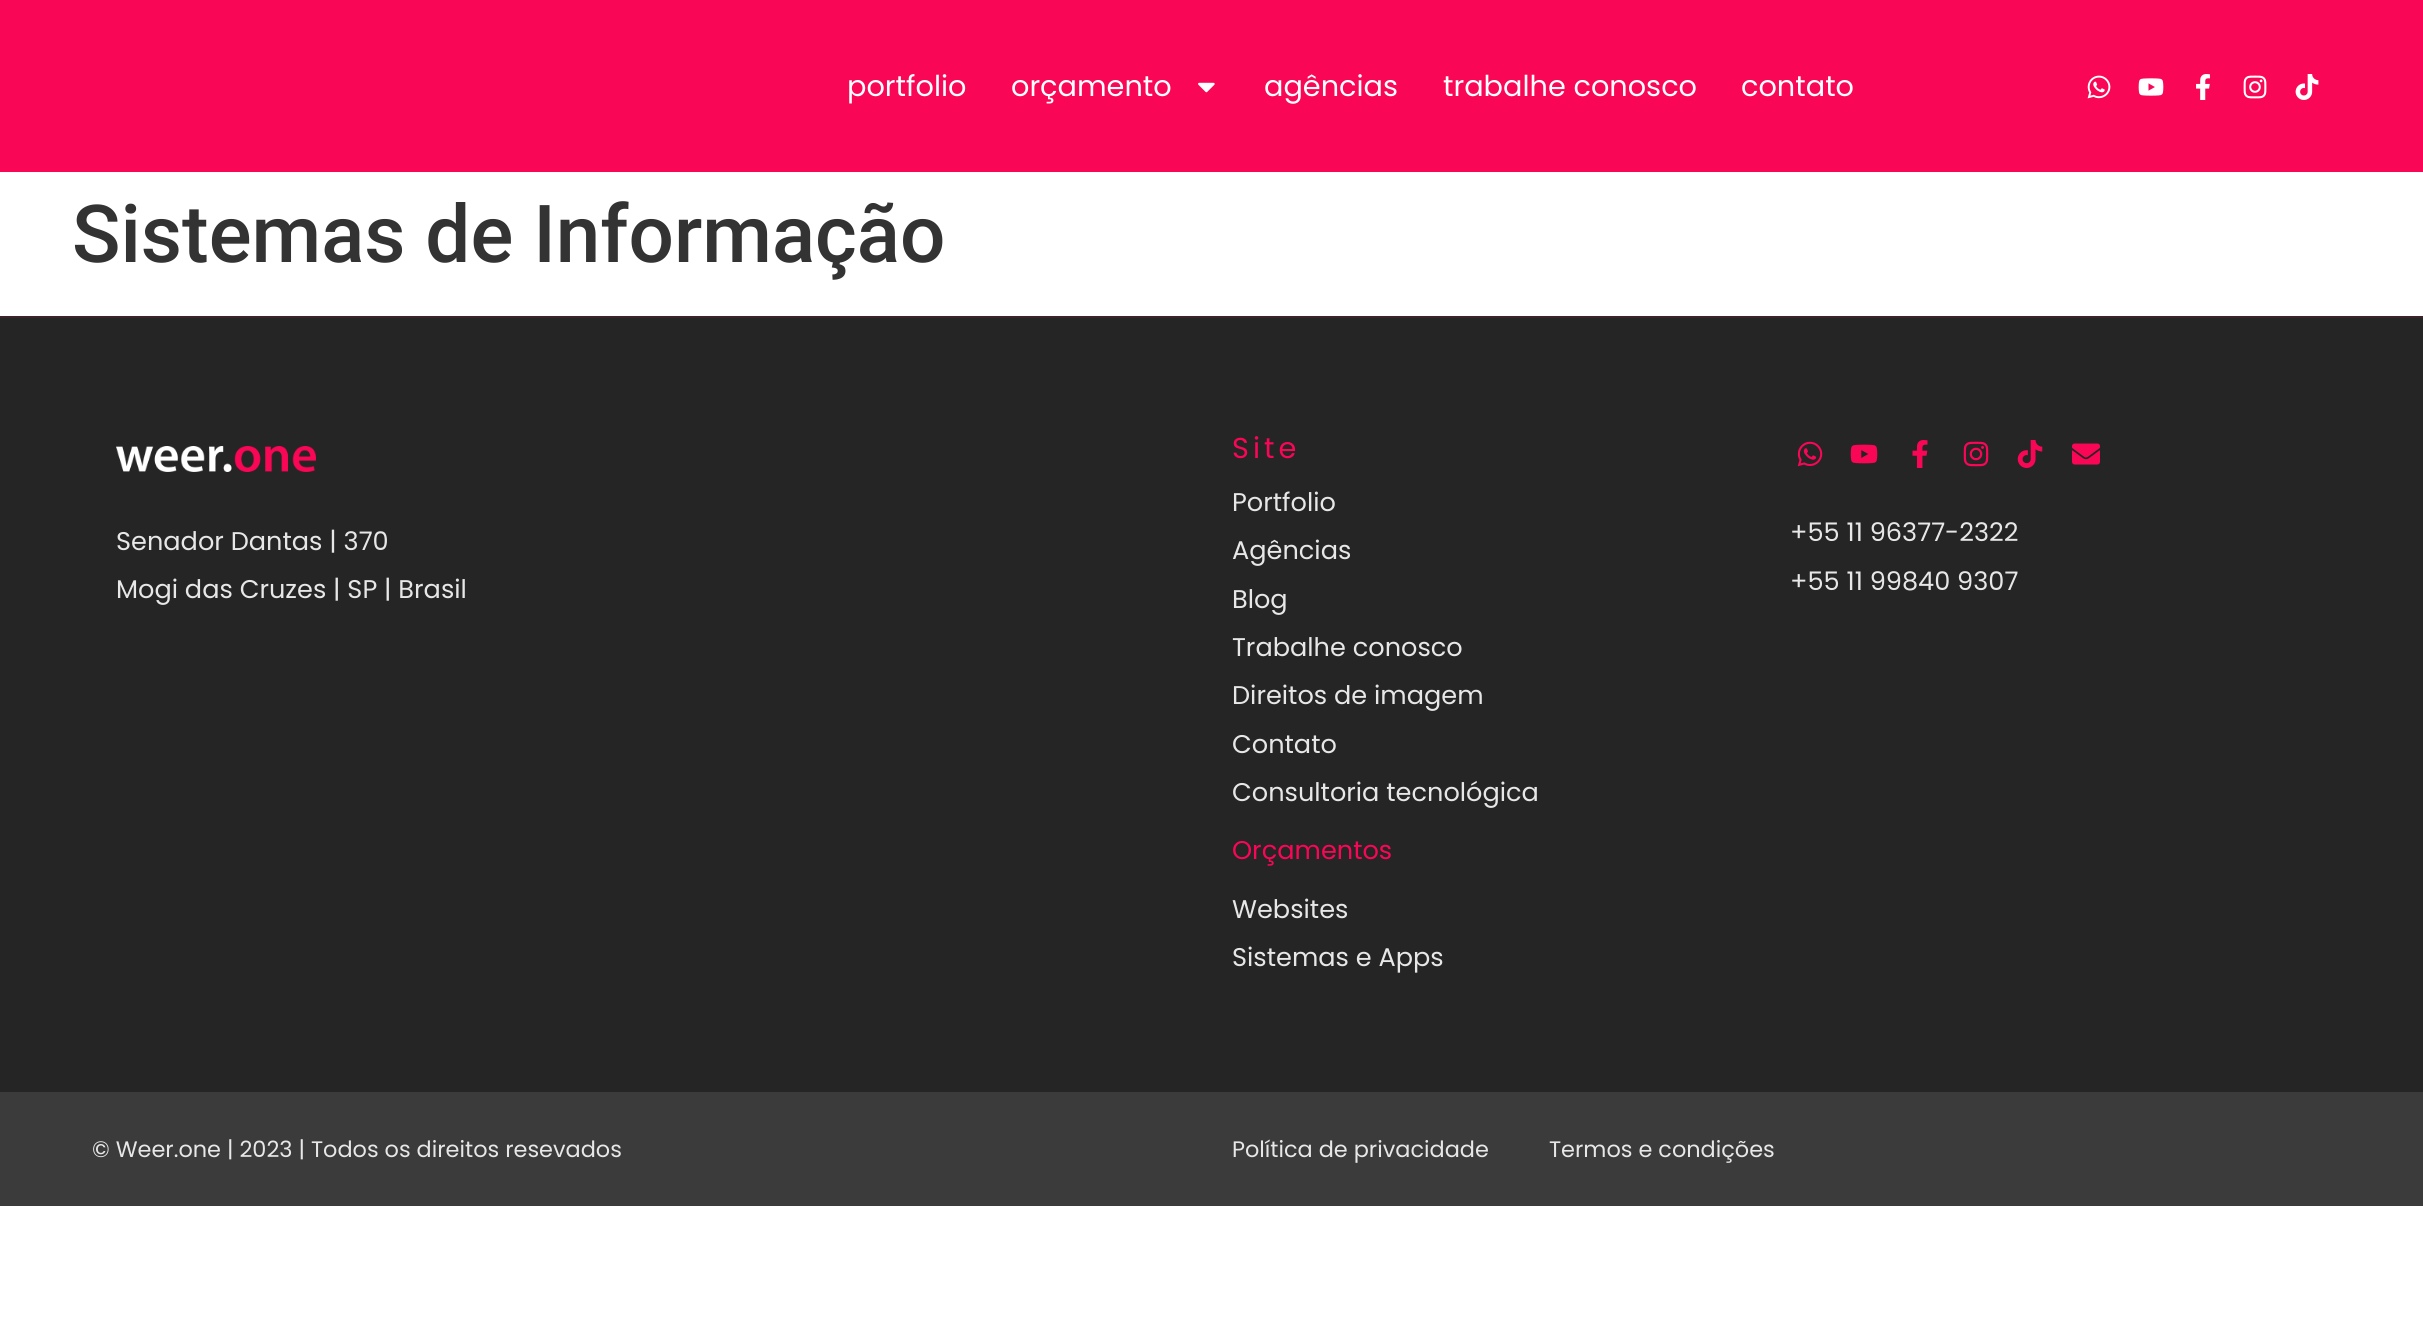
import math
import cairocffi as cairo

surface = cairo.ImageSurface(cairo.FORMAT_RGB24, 2423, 1318)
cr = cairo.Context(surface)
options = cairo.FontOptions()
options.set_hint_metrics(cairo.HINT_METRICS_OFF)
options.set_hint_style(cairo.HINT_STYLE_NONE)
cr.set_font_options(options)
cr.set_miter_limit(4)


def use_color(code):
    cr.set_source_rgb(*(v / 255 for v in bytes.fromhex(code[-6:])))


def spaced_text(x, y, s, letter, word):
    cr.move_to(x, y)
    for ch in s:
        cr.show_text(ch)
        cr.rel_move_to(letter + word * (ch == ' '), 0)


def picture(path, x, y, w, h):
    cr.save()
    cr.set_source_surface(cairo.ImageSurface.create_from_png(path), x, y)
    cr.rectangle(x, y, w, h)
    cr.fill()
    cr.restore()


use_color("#ffffff")
cr.paint()
use_color("#fa0656")
cr.rectangle(0, 0, 2423, 172)
cr.fill()
cr.select_font_face("Poppins")
cr.set_font_size(28.75)
use_color("#ffffff")
cr.move_to(847, 96)
cr.show_text("portfolio")
cr.move_to(1011, 96)
cr.show_text("orçamento")
picture("img1.png", 1198, 82, 17, 11)
cr.move_to(1264, 96)
cr.show_text("agências")
cr.move_to(1443, 96)
cr.show_text("trabalhe conosco")
cr.move_to(1741, 96)
cr.show_text("contato")
picture("img2.png", 2087, 75, 24, 24)
picture("img3.png", 2138, 78, 26, 18)
picture("img4.png", 2196, 74, 14, 26)
picture("img5.png", 2243, 75, 24, 24)
picture("img6.png", 2295, 74, 24, 26)
cr.select_font_face("Roboto Medium")
cr.set_font_size(80)
use_color("#333333")
cr.move_to(72, 262)
cr.show_text("Sistemas de Informação")
use_color("#252525")
cr.rectangle(0, 318, 2423, 774)
cr.fill()
use_color("#3c222a")
cr.rectangle(0, 316, 2423, 2)
cr.fill()
picture("img7.png", 116, 446, 200, 26)
cr.select_font_face("Poppins")
cr.set_font_size(25.6)
use_color("#e7e7e7")
cr.move_to(116, 550)
cr.show_text("Senador Dantas | 370")
cr.move_to(116, 598)
cr.show_text("Mogi das Cruzes | SP | Brasil")
cr.set_font_size(28.75)
use_color("#fa0656")
spaced_text(1232, 458, "Site", 4, 0)
cr.set_font_size(25.6)
use_color("#e7e7e7")
cr.move_to(1232, 511)
cr.show_text("Portfolio")
cr.move_to(1232, 559)
cr.show_text("Agências")
cr.move_to(1232, 608)
cr.show_text("Blog")
cr.move_to(1232, 656)
cr.show_text("Trabalhe conosco")
cr.move_to(1232, 704)
cr.show_text("Direitos de imagem")
cr.move_to(1232, 753)
cr.show_text("Contato")
cr.move_to(1232, 801)
cr.show_text("Consultoria tecnológica")
use_color("#fa0656")
cr.move_to(1232, 859)
cr.show_text("Orçamentos")
use_color("#e7e7e7")
cr.move_to(1232, 918)
cr.show_text("Websites")
cr.move_to(1232, 966)
cr.show_text("Sistemas e Apps")
picture("img8.png", 1797, 441, 26, 26)
picture("img9.png", 1850, 444, 28, 20)
picture("img10.png", 1912, 440, 16, 28)
picture("img11.png", 1963, 441, 26, 26)
picture("img12.png", 2017, 440, 26, 28)
picture("img13.png", 2072, 443, 28, 22)
cr.move_to(1790, 541)
cr.show_text("+55 11 96377-2322")
cr.move_to(1790, 590)
cr.show_text("+55 11 99840 9307")
use_color("#3b3b3b")
cr.rectangle(0, 1092, 2423, 114)
cr.fill()
cr.set_font_size(22.4)
use_color("#e7e7e7")
cr.move_to(92, 1157)
cr.show_text("© Weer.one | 2023 | Todos os direitos resevados")
cr.move_to(1232, 1157)
cr.show_text("Política de privacidade")
cr.move_to(1549, 1157)
cr.show_text("Termos e condições")
surface.write_to_png("result.png")
